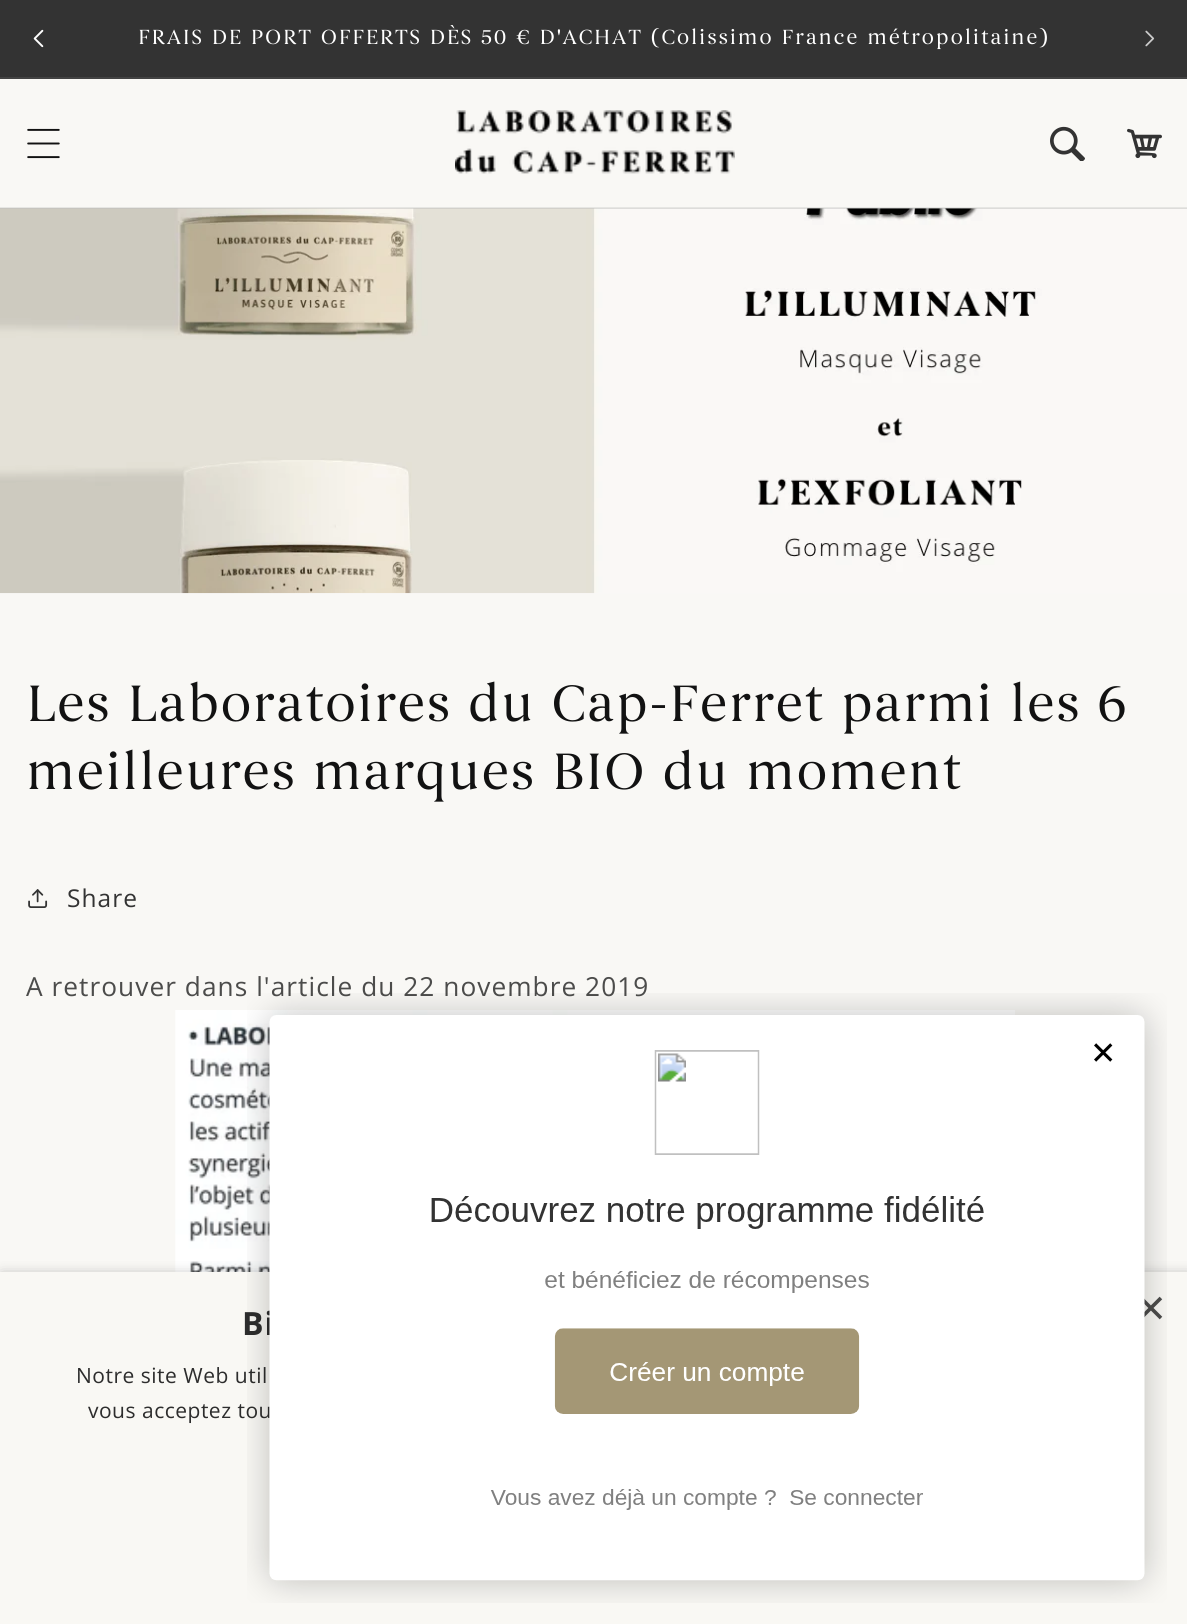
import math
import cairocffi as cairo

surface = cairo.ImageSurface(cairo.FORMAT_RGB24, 1187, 1624)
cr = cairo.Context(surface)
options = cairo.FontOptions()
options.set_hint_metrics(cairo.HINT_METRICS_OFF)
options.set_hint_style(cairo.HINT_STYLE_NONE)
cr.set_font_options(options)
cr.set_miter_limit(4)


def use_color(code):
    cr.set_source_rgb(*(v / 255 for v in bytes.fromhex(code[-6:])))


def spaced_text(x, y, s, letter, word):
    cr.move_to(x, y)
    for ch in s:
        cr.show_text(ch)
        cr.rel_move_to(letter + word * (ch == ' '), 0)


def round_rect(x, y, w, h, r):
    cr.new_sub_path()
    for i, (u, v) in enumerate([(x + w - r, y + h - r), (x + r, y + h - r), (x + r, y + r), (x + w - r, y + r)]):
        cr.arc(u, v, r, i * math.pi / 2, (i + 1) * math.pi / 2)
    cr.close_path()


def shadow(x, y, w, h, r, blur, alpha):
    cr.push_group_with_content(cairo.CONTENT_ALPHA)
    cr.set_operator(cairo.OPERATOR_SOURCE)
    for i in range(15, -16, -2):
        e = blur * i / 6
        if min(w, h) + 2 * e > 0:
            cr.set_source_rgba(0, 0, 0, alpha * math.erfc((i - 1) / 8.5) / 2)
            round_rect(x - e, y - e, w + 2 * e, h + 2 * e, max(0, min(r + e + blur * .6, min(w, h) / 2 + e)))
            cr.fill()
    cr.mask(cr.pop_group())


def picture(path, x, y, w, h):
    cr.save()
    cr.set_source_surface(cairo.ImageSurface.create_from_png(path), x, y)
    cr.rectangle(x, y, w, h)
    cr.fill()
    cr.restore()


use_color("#f9f8f5")
cr.paint()
use_color("#333333")
cr.rectangle(0, 0, 1187, 77)
cr.fill()
use_color("#434343")
cr.rectangle(0, 77, 1187, 2)
cr.fill()
picture("img1.png", 33, 29, 11, 19)
cr.select_font_face("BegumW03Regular")
cr.set_font_size(21)
use_color("#ffffff")
spaced_text(138, 44, "FRAIS DE PORT OFFERTS DÈS 50 € D'ACHAT (Colissimo France métropolitaine)", 1.75, 0)
picture("img2.png", 1145, 30, 10, 17)
use_color("#e1e1df")
cr.rectangle(0, 208, 1187, 1)
cr.fill()
picture("img7.png", 0, 208, 1187, 386)
cr.set_source_rgba(0.071, 0.071, 0.071, 0.08)
cr.rectangle(0, 207, 1187, 2)
cr.fill()
picture("img3.png", 27, 128, 33, 31)
picture("img4.png", 455, 110, 280, 64)
picture("img5.png", 1050, 126, 35, 35)
picture("img6.png", 1127, 128, 35, 31)
cr.set_font_size(52.5)
use_color("#121212")
spaced_text(26, 721, "Les Laboratoires du Cap-Ferret parmi les 6", 1.05, 0)
spaced_text(26, 789, "meilleures marques BIO du moment", 1.05, 0)
picture("img8.png", 28, 889, 20, 19)
cr.select_font_face("Open Sans")
cr.set_font_size(24.5)
use_color("#333333")
spaced_text(67, 907, "Share", 1.05, 0)
cr.set_font_size(26.25)
use_color("#4c4c4b")
spaced_text(26, 996, "A retrouver dans l'article du 22 novembre 2019", 1.05, 0)
picture("img9.png", 175, 1010, 840, 262)
use_color("#000000")
shadow(2, 1276, 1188, 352, 0, 7, 0.35)
use_color("#f9f8f4")
cr.rectangle(0, 1272, 1187, 352)
cr.fill()
cr.select_font_face("Liberation Sans")
cr.set_font_size(51)
use_color("#4c4c4b")
cr.move_to(1136, 1325)
cr.show_text("×")
cr.select_font_face("Open Sans", cairo.FONT_SLANT_NORMAL, cairo.FONT_WEIGHT_BOLD)
cr.set_font_size(32)
use_color("#2d2d2d")
spaced_text(242, 1335, "Bi", 1, 0)
cr.select_font_face("Open Sans")
cr.set_font_size(21)
spaced_text(76, 1383, "Notre site Web util", 0.5, 0)
spaced_text(88, 1418, "vous acceptez tou", 0.5, 0)
picture("img10.png", 247, 993, 920, 610)
surface.write_to_png("result.png")
